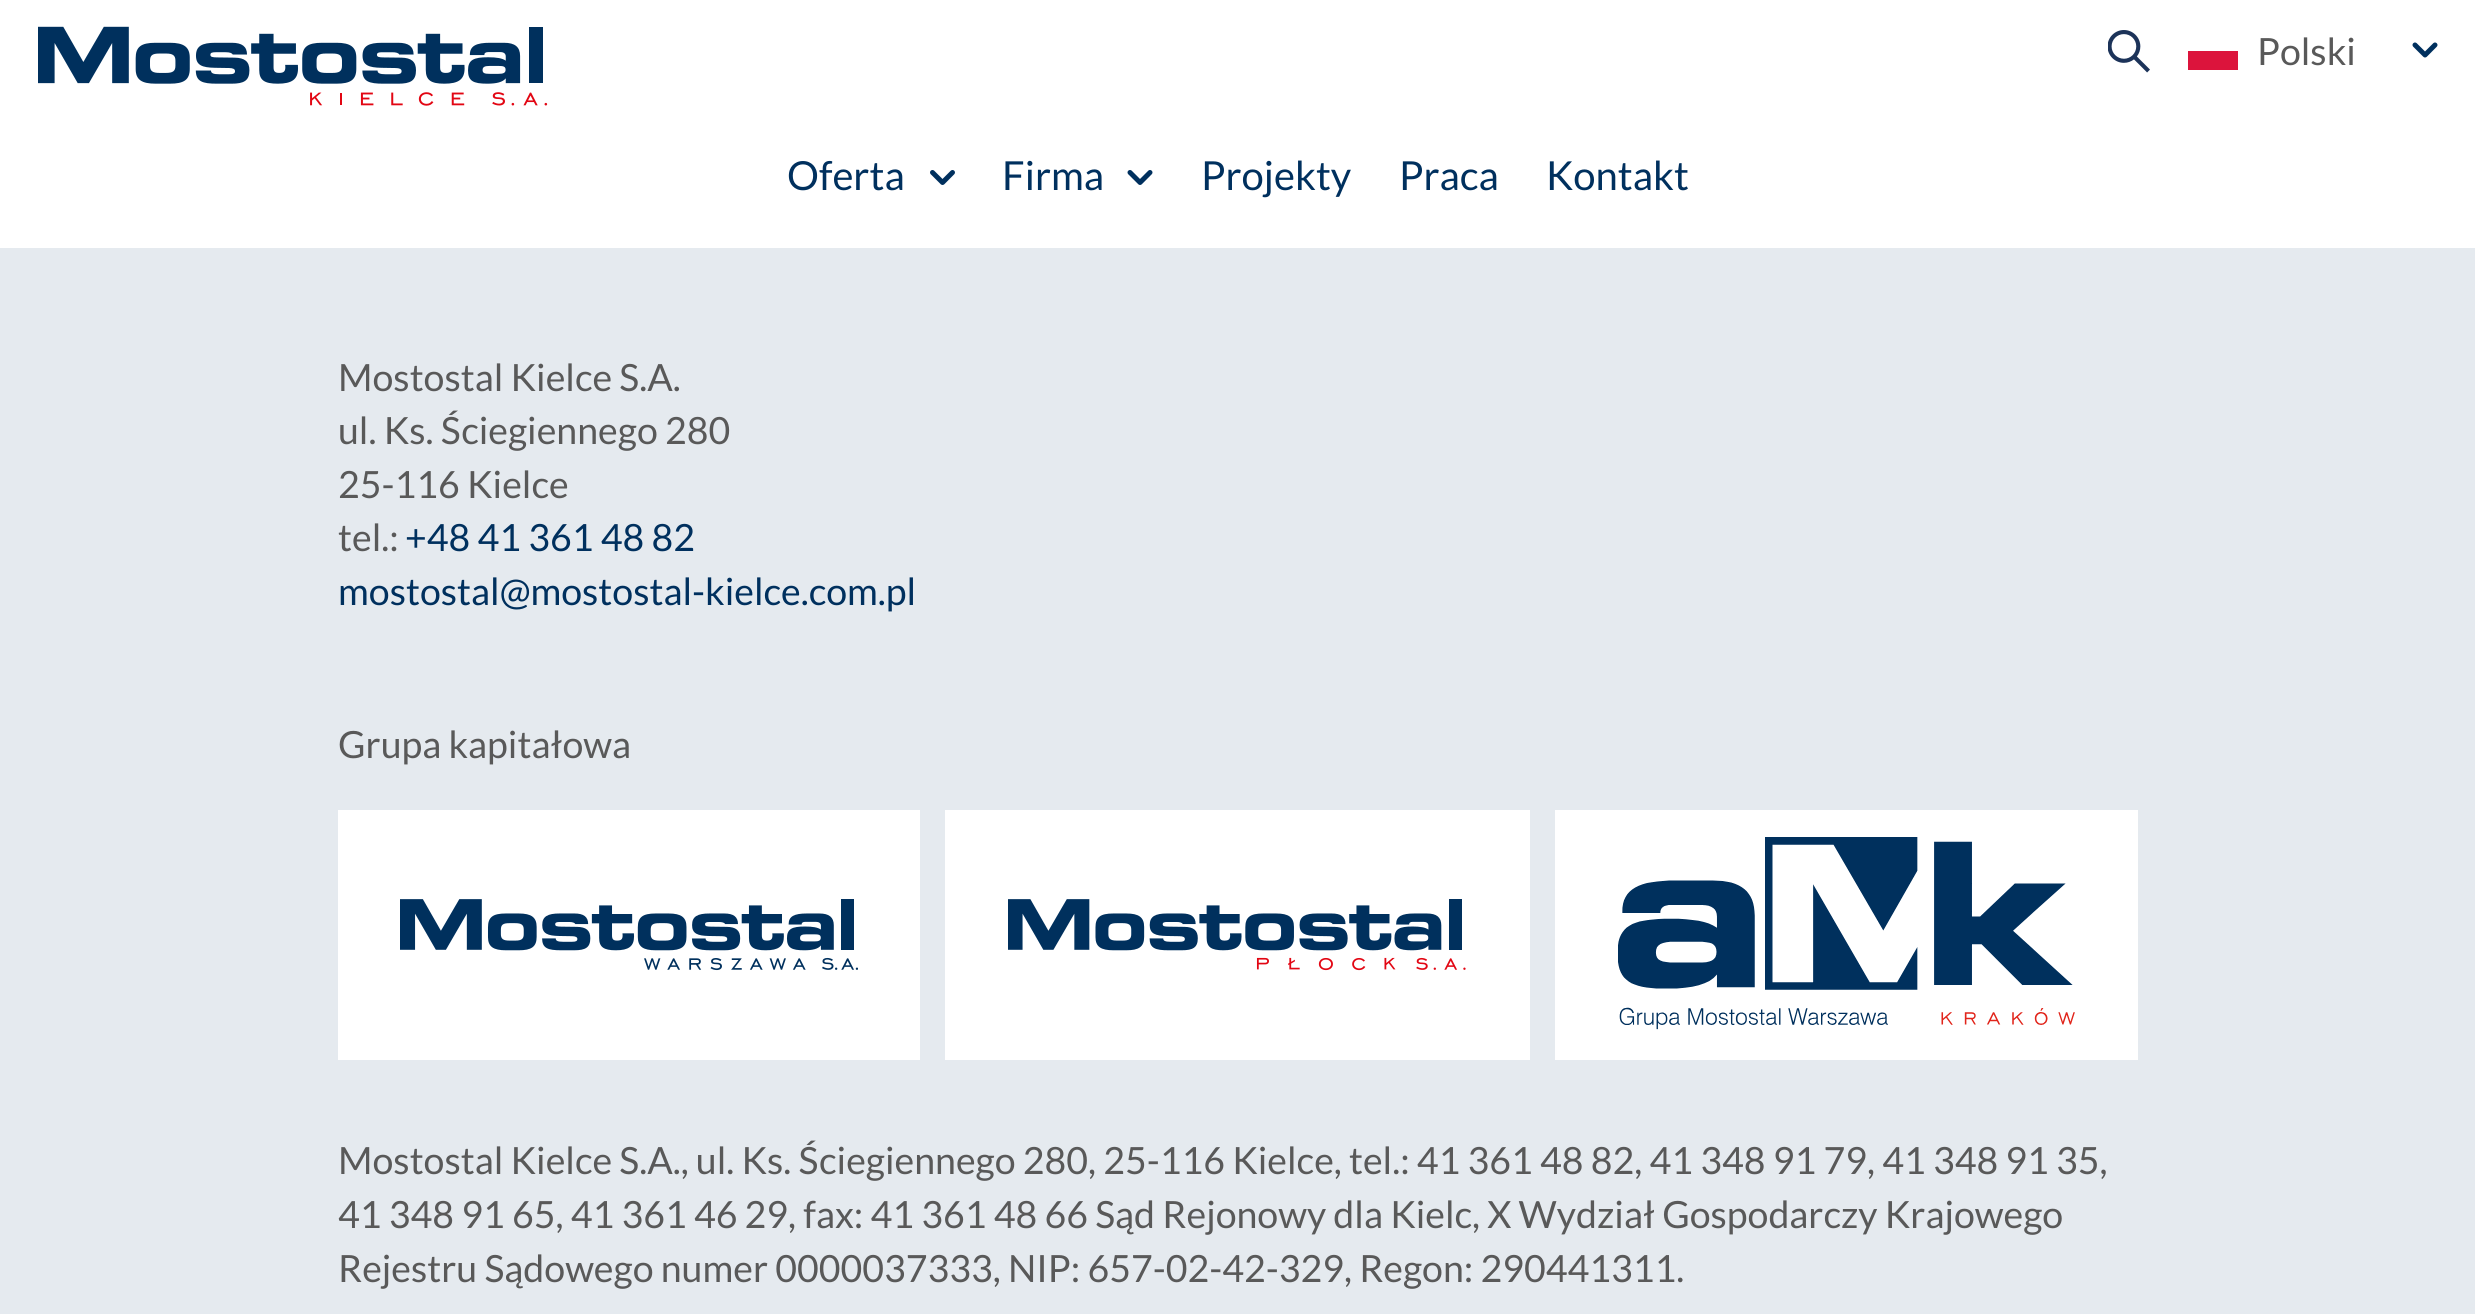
import math
import cairocffi as cairo

surface = cairo.ImageSurface(cairo.FORMAT_RGB24, 2475, 1314)
cr = cairo.Context(surface)
options = cairo.FontOptions()
options.set_hint_metrics(cairo.HINT_METRICS_OFF)
options.set_hint_style(cairo.HINT_STYLE_NONE)
cr.set_font_options(options)
cr.set_miter_limit(4)


def use_color(code):
    cr.set_source_rgb(*(v / 255 for v in bytes.fromhex(code[-6:])))


def picture(path, x, y, w, h):
    cr.save()
    cr.set_source_surface(cairo.ImageSurface.create_from_png(path), x, y)
    cr.rectangle(x, y, w, h)
    cr.fill()
    cr.restore()


use_color("#e5eaef")
cr.paint()
use_color("#ffffff")
cr.rectangle(0, 0, 2475, 248)
cr.fill()
picture("img1.png", 38, 26, 510, 80)
picture("img2.png", 2108, 30, 42, 43)
use_color("#dc143c")
cr.rectangle(2188, 51, 50, 19)
cr.fill()
cr.select_font_face("Lato")
cr.set_font_size(37.5)
use_color("#595959")
cr.move_to(2257, 65)
cr.show_text("Polski")
picture("img3.png", 2412, 42, 26, 16)
cr.set_font_size(40)
use_color("#00305e")
cr.move_to(787, 190)
cr.show_text("Oferta")
picture("img4.png", 930, 170, 25, 15)
cr.move_to(1002, 190)
cr.show_text("Firma")
picture("img5.png", 1127, 170, 26, 15)
cr.move_to(1201, 190)
cr.show_text("Projekty")
cr.move_to(1399, 190)
cr.show_text("Praca")
cr.move_to(1546, 190)
cr.show_text("Kontakt")
cr.set_font_size(37.5)
use_color("#595959")
cr.move_to(338, 391)
cr.show_text("Mostostal Kielce S.A.")
cr.move_to(338, 444)
cr.show_text("ul. Ks. Ściegiennego 280")
cr.move_to(338, 498)
cr.show_text("25-116 Kielce")
cr.move_to(338, 551)
cr.show_text("tel.:")
use_color("#00305e")
cr.move_to(405, 551)
cr.show_text("+48 41 361 48 82")
cr.move_to(338, 605)
cr.show_text("mostostal@mostostal-kielce.com.pl")
use_color("#595959")
cr.move_to(338, 758)
cr.show_text("Grupa kapitałowa")
use_color("#ffffff")
cr.rectangle(338, 810, 582, 250)
cr.fill()
picture("img6.png", 400, 899, 458, 72)
cr.rectangle(945, 810, 585, 250)
cr.fill()
picture("img7.png", 1008, 899, 458, 72)
cr.rectangle(1555, 810, 583, 250)
cr.fill()
picture("img8.png", 1618, 837, 457, 193)
use_color("#595959")
cr.move_to(338, 1174)
cr.show_text("Mostostal Kielce S.A., ul. Ks. Ściegiennego 280, 25-116 Kielce, tel.: 41 361 48 82, 41 348 91 79, 41 348 91 35,")
cr.move_to(338, 1228)
cr.show_text("41 348 91 65, 41 361 46 29, fax: 41 361 48 66 Sąd Rejonowy dla Kielc, X Wydział Gospodarczy Krajowego")
cr.move_to(338, 1282)
cr.show_text("Rejestru Sądowego numer 0000037333, NIP: 657-02-42-329, Regon: 290441311.")
surface.write_to_png("result.png")
